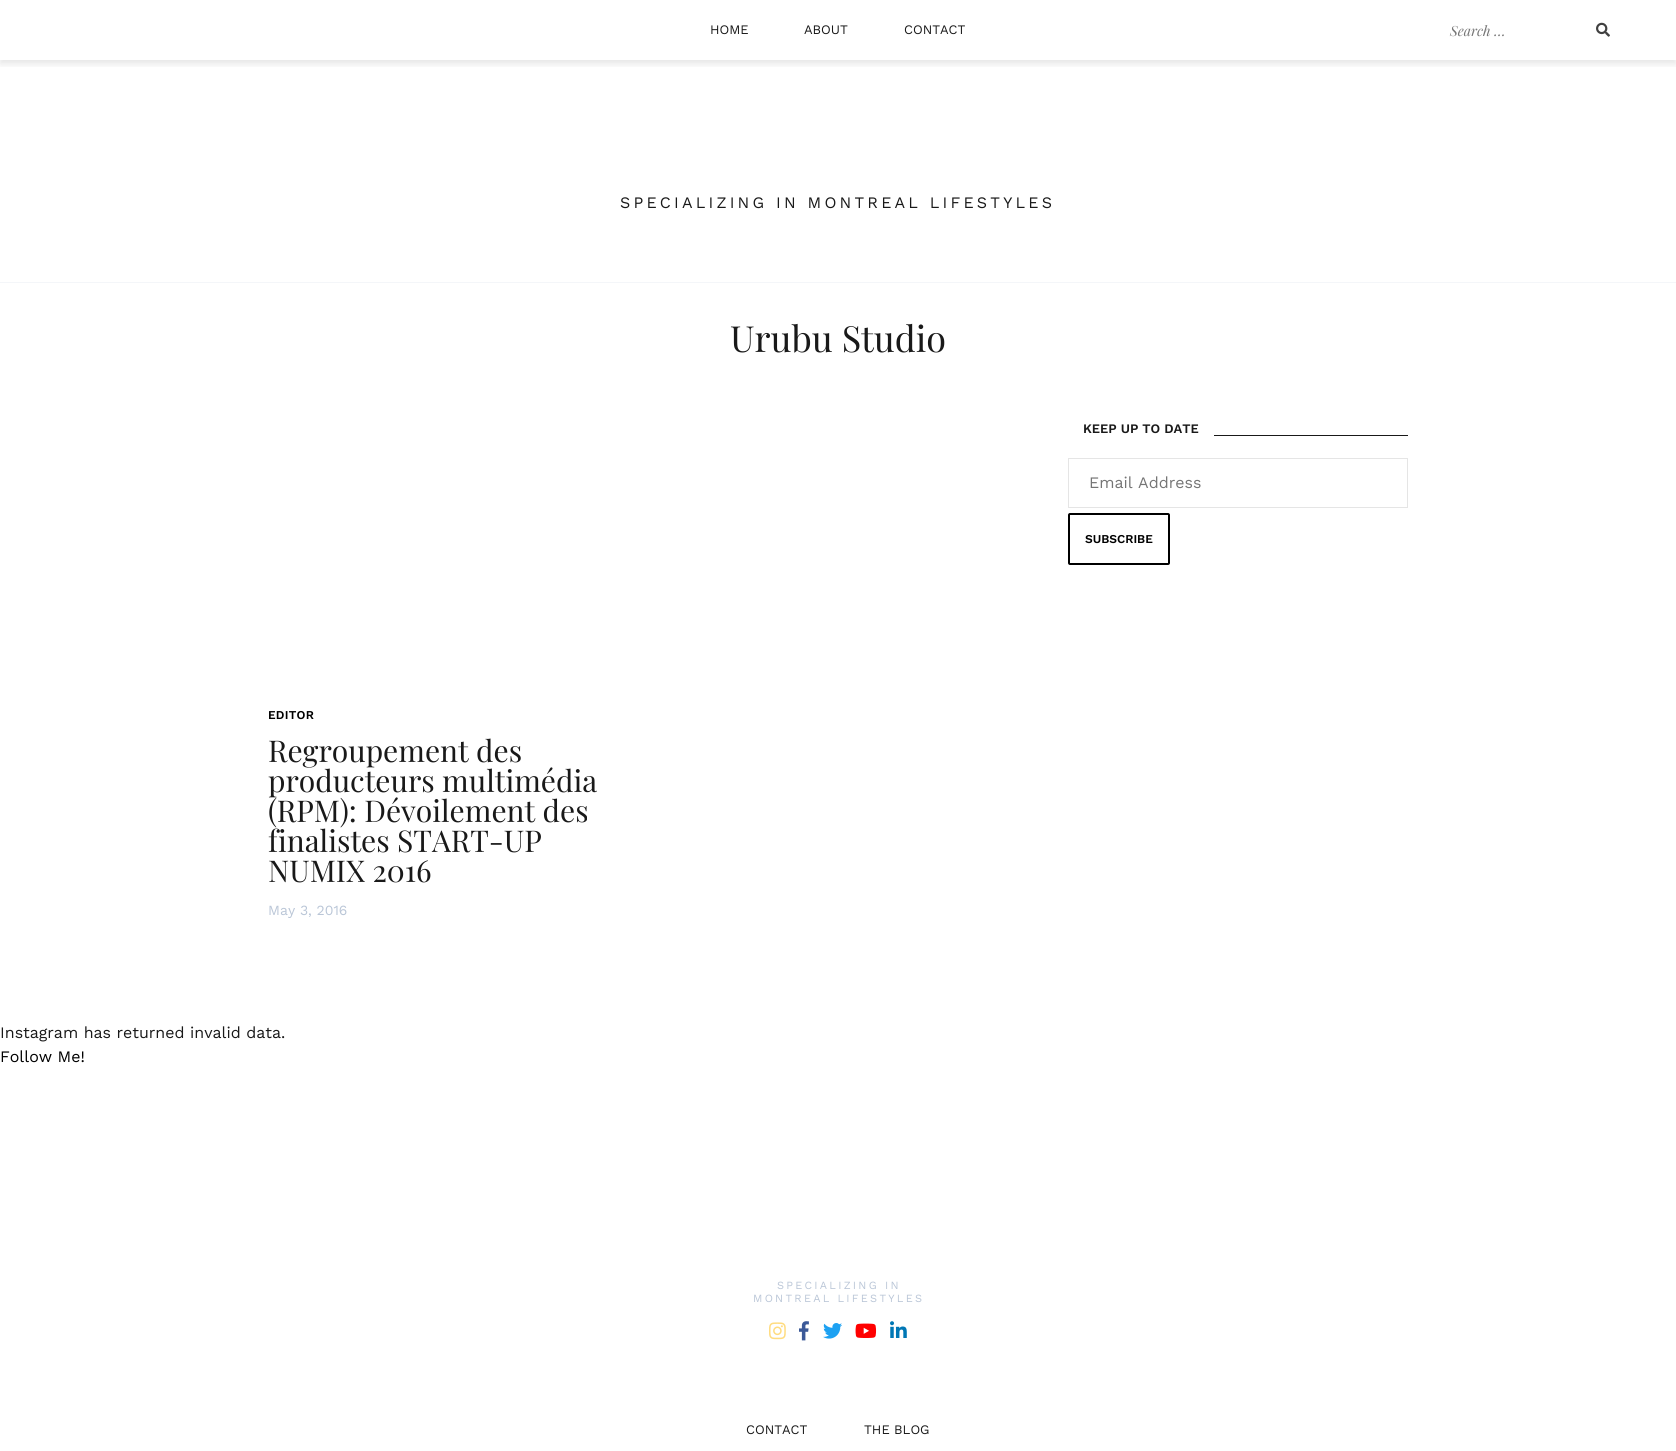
import math
import cairocffi as cairo

surface = cairo.ImageSurface(cairo.FORMAT_RGB24, 1676, 1451)
cr = cairo.Context(surface)
options = cairo.FontOptions()
options.set_hint_metrics(cairo.HINT_METRICS_OFF)
options.set_hint_style(cairo.HINT_STYLE_NONE)
cr.set_font_options(options)
cr.set_miter_limit(4)


def use_color(code):
    cr.set_source_rgb(*(v / 255 for v in bytes.fromhex(code[-6:])))


def spaced_text(x, y, s, letter, word):
    cr.move_to(x, y)
    for ch in s:
        cr.show_text(ch)
        cr.rel_move_to(letter + word * (ch == ' '), 0)


def round_rect(x, y, w, h, r):
    cr.new_sub_path()
    for i, (u, v) in enumerate([(x + w - r, y + h - r), (x + r, y + h - r), (x + r, y + r), (x + w - r, y + r)]):
        cr.arc(u, v, r, i * math.pi / 2, (i + 1) * math.pi / 2)
    cr.close_path()


def shadow(x, y, w, h, r, blur, alpha):
    cr.push_group_with_content(cairo.CONTENT_ALPHA)
    cr.set_operator(cairo.OPERATOR_SOURCE)
    for i in range(15, -16, -2):
        e = blur * i / 6
        if min(w, h) + 2 * e > 0:
            cr.set_source_rgba(0, 0, 0, alpha * math.erfc((i - 1) / 8.5) / 2)
            round_rect(x - e, y - e, w + 2 * e, h + 2 * e, max(0, min(r + e + blur * .6, min(w, h) / 2 + e)))
            cr.fill()
    cr.mask(cr.pop_group())


def picture(path, x, y, w, h):
    cr.save()
    cr.set_source_surface(cairo.ImageSurface.create_from_png(path), x, y)
    cr.rectangle(x, y, w, h)
    cr.fill()
    cr.restore()


use_color("#ffffff")
cr.paint()
cr.save()
cr.rectangle(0, 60, 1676, 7)
cr.clip()
use_color("#000000")
shadow(0, 4, 1676, 60, 0, 3.5, 0.1)
cr.restore()
cr.select_font_face("Work Sans")
cr.set_font_size(13)
use_color("#191919")
cr.move_to(710, 34)
cr.show_text("HOME")
cr.move_to(804, 34)
cr.show_text("ABOUT")
cr.move_to(904, 34)
cr.show_text("CONTACT")
cr.select_font_face("Playfair Display", cairo.FONT_SLANT_ITALIC)
cr.set_font_size(14)
use_color("#757575")
cr.move_to(1450, 36)
cr.show_text("Search …")
picture("img1.png", 1596, 22, 14, 15)
cr.select_font_face("Work Sans")
cr.set_font_size(16)
use_color("#191919")
spaced_text(620, 208, "SPECIALIZING IN MONTREAL LIFESTYLES", 3.2, 0)
use_color("#f4f6f9")
cr.rectangle(0, 282, 1676, 1)
cr.fill()
cr.select_font_face("Playfair Display")
cr.set_font_size(36)
use_color("#191919")
cr.move_to(730, 352)
cr.show_text("Urubu Studio")
cr.select_font_face("Work Sans SemiBold")
cr.set_font_size(13)
cr.move_to(1083, 433)
cr.show_text("KEEP UP TO DATE")
cr.rectangle(1214, 435, 194, 1)
cr.fill()
cr.rectangle(1068.5, 458.5, 339, 49)
use_color("#e5e5e5")
cr.set_line_width(1)
cr.stroke()
cr.select_font_face("Work Sans")
cr.set_font_size(16)
use_color("#757575")
cr.move_to(1089, 488)
cr.show_text("Email Address")
round_rect(1069, 514, 100, 50, 1)
use_color("#000000")
cr.set_line_width(2)
cr.stroke()
cr.select_font_face("Work Sans SemiBold")
cr.set_font_size(12)
cr.move_to(1085, 543)
cr.show_text("SUBSCRIBE")
spaced_text(268, 719, "EDITOR", 0.25, 0)
cr.select_font_face("Playfair Display")
cr.set_font_size(30)
use_color("#191919")
cr.move_to(268, 762)
cr.show_text("Regroupement des")
cr.move_to(268, 792)
cr.show_text("producteurs multimédia")
cr.move_to(268, 822)
cr.show_text("(RPM): Dévoilement des")
cr.move_to(268, 852)
cr.show_text("finalistes START-UP")
cr.move_to(268, 882)
cr.show_text("NUMIX 2016")
cr.select_font_face("Work Sans")
cr.set_font_size(14)
use_color("#bac6d7")
cr.move_to(268, 915)
cr.show_text("May 3, 2016")
cr.set_font_size(16)
use_color("#191919")
cr.move_to(0, 1038)
cr.show_text("Instagram has returned invalid data.")
use_color("#000000")
cr.move_to(0, 1062)
cr.show_text("Follow Me!")
cr.set_font_size(11)
use_color("#bac6d7")
spaced_text(777, 1289, "SPECIALIZING IN", 2.25, 0)
spaced_text(753, 1302, "MONTREAL LIFESTYLES", 2.25, 0)
picture("img2.png", 769, 1322, 17, 18)
picture("img3.png", 799, 1321, 10, 20)
picture("img4.png", 823, 1323, 19, 16)
picture("img5.png", 855, 1323, 22, 15)
picture("img6.png", 890, 1321, 17, 17)
cr.set_font_size(13)
use_color("#191919")
cr.move_to(746, 1434)
cr.show_text("CONTACT")
cr.move_to(864, 1434)
cr.show_text("THE BLOG")
surface.write_to_png("result.png")
